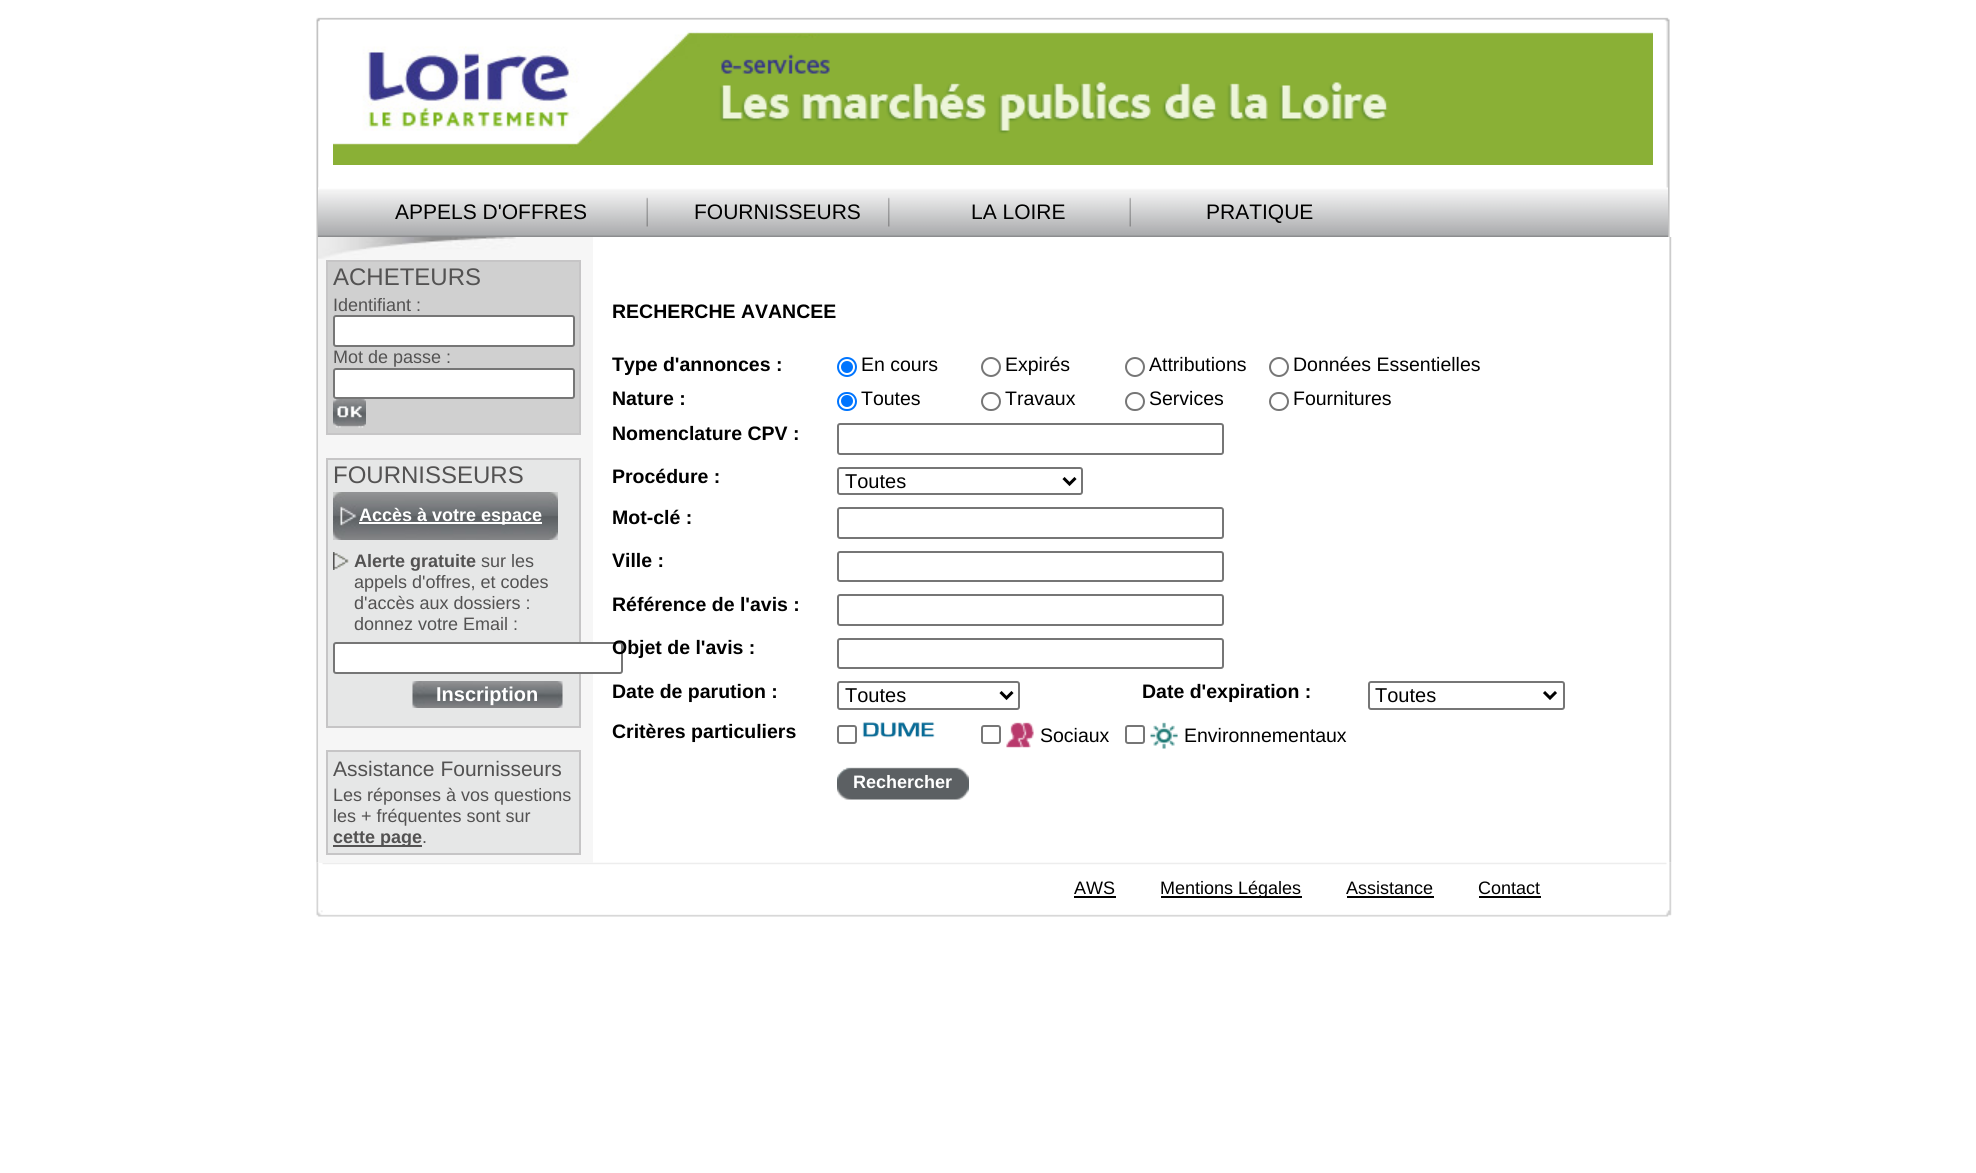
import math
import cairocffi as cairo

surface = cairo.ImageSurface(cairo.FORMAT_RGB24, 1976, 1173)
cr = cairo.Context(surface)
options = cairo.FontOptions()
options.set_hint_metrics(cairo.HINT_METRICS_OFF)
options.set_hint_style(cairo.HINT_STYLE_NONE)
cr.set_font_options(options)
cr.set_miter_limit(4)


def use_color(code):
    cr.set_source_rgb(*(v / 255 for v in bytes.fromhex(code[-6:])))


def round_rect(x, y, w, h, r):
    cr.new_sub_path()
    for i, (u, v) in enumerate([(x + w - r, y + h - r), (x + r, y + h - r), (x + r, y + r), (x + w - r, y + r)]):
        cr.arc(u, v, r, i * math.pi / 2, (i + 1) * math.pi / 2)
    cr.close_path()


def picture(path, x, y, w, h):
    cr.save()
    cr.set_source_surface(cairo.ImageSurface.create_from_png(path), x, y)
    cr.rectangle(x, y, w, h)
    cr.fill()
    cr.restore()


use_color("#ffffff")
cr.paint()
picture("img1.png", 316, 17, 1354, 220)
picture("img2.png", 333, 30, 1320, 135)
picture("img3.png", 318, 187, 1350, 50)
picture("img4.png", 646, 197, 2, 30)
cr.select_font_face("Liberation Sans")
cr.set_font_size(21)
use_color("#000000")
cr.move_to(395, 219)
cr.show_text("APPELS D'OFFRES")
picture("img5.png", 888, 197, 2, 30)
cr.move_to(694, 219)
cr.show_text("FOURNISSEURS")
picture("img6.png", 1129, 197, 2, 30)
cr.move_to(971, 219)
cr.show_text("LA LOIRE")
cr.move_to(1206, 219)
cr.show_text("PRATIQUE")
picture("img17.png", 316, 862, 1356, 55)
picture("img7.png", 316, 237, 1356, 626)
use_color("#f6f6f6")
cr.rectangle(319, 237, 274, 626)
cr.fill()
picture("img8.png", 318, 237, 198, 22)
use_color("#d0d0d0")
cr.rectangle(327, 261, 253, 173)
cr.fill_preserve()
use_color("#c6c5c6")
cr.stroke()
cr.set_font_size(24)
use_color("#535252")
cr.move_to(333, 285)
cr.show_text("ACHETEURS")
cr.set_font_size(18)
cr.move_to(333, 311)
cr.show_text("Identifiant :")
use_color("#ffffff")
round_rect(334, 316, 240, 30, 2)
cr.fill_preserve()
use_color("#767676")
cr.stroke()
use_color("#535252")
cr.move_to(333, 363)
cr.show_text("Mot de passe :")
use_color("#ffffff")
round_rect(334, 369, 240, 29, 2)
cr.fill_preserve()
use_color("#767676")
cr.stroke()
picture("img9.png", 333, 399, 33, 29)
use_color("#e6e7e7")
cr.rectangle(327, 459, 253, 268)
cr.fill_preserve()
use_color("#c6c5c6")
cr.stroke()
cr.set_font_size(24)
use_color("#535252")
cr.move_to(333, 483)
cr.show_text("FOURNISSEURS")
picture("img10.png", 333, 492, 225, 48)
use_color("#ffffff")
cr.rectangle(359, 522, 183, 2)
cr.fill()
cr.select_font_face("Liberation Sans", cairo.FONT_SLANT_NORMAL, cairo.FONT_WEIGHT_BOLD)
cr.set_font_size(18)
cr.move_to(359, 521)
cr.show_text("Accès à votre espace")
picture("img11.png", 333, 552, 16, 18)
use_color("#535252")
cr.move_to(354, 567)
cr.show_text("Alerte gratuite")
cr.select_font_face("Liberation Sans")
cr.move_to(481, 567)
cr.show_text("sur les")
cr.move_to(354, 588)
cr.show_text("appels d'offres, et codes")
cr.move_to(354, 609)
cr.show_text("d'accès aux dossiers :")
cr.move_to(354, 630)
cr.show_text("donnez votre Email :")
use_color("#ffffff")
round_rect(334, 643, 288, 30, 2)
cr.fill_preserve()
use_color("#767676")
cr.stroke()
picture("img12.png", 412, 681, 151, 27)
cr.select_font_face("Liberation Sans", cairo.FONT_SLANT_NORMAL, cairo.FONT_WEIGHT_BOLD)
cr.set_font_size(20)
use_color("#ffffff")
cr.move_to(436, 701)
cr.show_text("Inscription")
use_color("#e6e7e7")
cr.rectangle(327, 751, 253, 103)
cr.fill_preserve()
use_color("#c6c5c6")
cr.stroke()
cr.select_font_face("Liberation Sans")
cr.set_font_size(21)
use_color("#535252")
cr.move_to(333, 776)
cr.show_text("Assistance Fournisseurs")
cr.set_font_size(18)
cr.move_to(333, 801)
cr.show_text("Les réponses à vos questions")
cr.move_to(333, 822)
cr.show_text("les + fréquentes sont sur")
cr.rectangle(333, 845, 89, 2)
cr.fill()
cr.select_font_face("Liberation Sans", cairo.FONT_SLANT_NORMAL, cairo.FONT_WEIGHT_BOLD)
cr.move_to(333, 843)
cr.show_text("cette page")
cr.select_font_face("Liberation Sans")
cr.move_to(422, 843)
cr.show_text(".")
cr.select_font_face("Liberation Sans", cairo.FONT_SLANT_NORMAL, cairo.FONT_WEIGHT_BOLD)
cr.set_font_size(19.5)
use_color("#000000")
cr.move_to(612, 318)
cr.show_text("RECHERCHE AVANCEE")
cr.move_to(612, 371)
cr.show_text("Type d'annonces :")
cr.new_path()
cr.arc(847, 367, 9, 0, 2 * math.pi)
use_color("#0075ff")
cr.stroke()
cr.arc(847, 367, 6, 0, 2 * math.pi)
cr.fill()
cr.select_font_face("Liberation Sans")
use_color("#000000")
cr.move_to(861, 371)
cr.show_text("En cours")
cr.new_path()
cr.arc(991, 367, 9, 0, 2 * math.pi)
use_color("#767676")
cr.stroke()
use_color("#000000")
cr.move_to(1005, 371)
cr.show_text("Expirés")
cr.new_path()
cr.arc(1135, 367, 9, 0, 2 * math.pi)
use_color("#767676")
cr.stroke()
use_color("#000000")
cr.move_to(1149, 371)
cr.show_text("Attributions")
cr.new_path()
cr.arc(1279, 367, 9, 0, 2 * math.pi)
use_color("#767676")
cr.stroke()
use_color("#000000")
cr.move_to(1293, 371)
cr.show_text("Données Essentielles")
cr.select_font_face("Liberation Sans", cairo.FONT_SLANT_NORMAL, cairo.FONT_WEIGHT_BOLD)
cr.move_to(612, 405)
cr.show_text("Nature :")
round_rect(838, 393, 18, 17, 8.5)
use_color("#0075ff")
cr.stroke()
cr.arc(847, 401, 6, 0, 2 * math.pi)
cr.fill()
cr.select_font_face("Liberation Sans")
use_color("#000000")
cr.move_to(861, 405)
cr.show_text("Toutes")
round_rect(982, 393, 18, 17, 8.5)
use_color("#767676")
cr.stroke()
use_color("#000000")
cr.move_to(1005, 405)
cr.show_text("Travaux")
round_rect(1126, 393, 18, 17, 8.5)
use_color("#767676")
cr.stroke()
use_color("#000000")
cr.move_to(1149, 405)
cr.show_text("Services")
round_rect(1270, 393, 18, 17, 8.5)
use_color("#767676")
cr.stroke()
use_color("#000000")
cr.move_to(1293, 405)
cr.show_text("Fournitures")
cr.select_font_face("Liberation Sans", cairo.FONT_SLANT_NORMAL, cairo.FONT_WEIGHT_BOLD)
cr.move_to(612, 440)
cr.show_text("Nomenclature CPV :")
round_rect(838, 424, 385, 30, 2)
use_color("#767676")
cr.stroke()
use_color("#000000")
cr.move_to(612, 483)
cr.show_text("Procédure :")
round_rect(838, 468, 244, 26, 2)
use_color("#767676")
cr.stroke()
cr.new_path()
cr.move_to(1063.5, 478)
cr.line_to(1069.5, 484)
cr.line_to(1075.5, 478)
use_color("#000000")
cr.set_line_width(3)
cr.stroke()
cr.select_font_face("Liberation Sans")
cr.set_font_size(20)
cr.move_to(845, 488)
cr.show_text("Toutes")
cr.select_font_face("Liberation Sans", cairo.FONT_SLANT_NORMAL, cairo.FONT_WEIGHT_BOLD)
cr.set_font_size(19.5)
cr.move_to(612, 524)
cr.show_text("Mot-clé :")
round_rect(838, 508, 385, 30, 2)
use_color("#767676")
cr.set_line_width(2)
cr.stroke()
use_color("#000000")
cr.move_to(612, 567)
cr.show_text("Ville :")
round_rect(838, 552, 385, 29, 2)
use_color("#767676")
cr.stroke()
use_color("#000000")
cr.move_to(612, 611)
cr.show_text("Référence de l'avis :")
round_rect(838, 595, 385, 30, 2)
use_color("#767676")
cr.stroke()
use_color("#000000")
cr.move_to(612, 654)
cr.show_text("Objet de l'avis :")
round_rect(838, 639, 385, 29, 2)
use_color("#767676")
cr.stroke()
use_color("#000000")
cr.move_to(612, 698)
cr.show_text("Date de parution :")
round_rect(838, 682, 181, 27, 2)
use_color("#767676")
cr.stroke()
cr.new_path()
cr.move_to(1000.5, 692)
cr.line_to(1006.5, 698)
cr.line_to(1012.5, 692)
use_color("#000000")
cr.set_line_width(3)
cr.stroke()
cr.select_font_face("Liberation Sans")
cr.set_font_size(20)
cr.move_to(845, 702)
cr.show_text("Toutes")
cr.select_font_face("Liberation Sans", cairo.FONT_SLANT_NORMAL, cairo.FONT_WEIGHT_BOLD)
cr.set_font_size(19.5)
cr.move_to(1142, 698)
cr.show_text("Date d'expiration :")
round_rect(1369, 682, 195, 27, 2)
use_color("#767676")
cr.set_line_width(2)
cr.stroke()
cr.new_path()
cr.move_to(1544, 692)
cr.line_to(1550, 698)
cr.line_to(1556, 692)
use_color("#000000")
cr.set_line_width(3)
cr.stroke()
cr.select_font_face("Liberation Sans")
cr.set_font_size(20)
cr.move_to(1375, 702)
cr.show_text("Toutes")
cr.select_font_face("Liberation Sans", cairo.FONT_SLANT_NORMAL, cairo.FONT_WEIGHT_BOLD)
cr.set_font_size(19.5)
cr.move_to(612, 738)
cr.show_text("Critères particuliers")
round_rect(838, 726, 18, 17, 2)
use_color("#767676")
cr.set_line_width(2)
cr.stroke()
picture("img13.png", 862, 722, 73, 16)
round_rect(982, 726, 18, 17, 2)
cr.stroke()
picture("img14.png", 1006, 722, 28, 26)
cr.select_font_face("Liberation Sans")
use_color("#000000")
cr.move_to(1040, 742)
cr.show_text("Sociaux")
round_rect(1126, 726, 18, 17, 2)
use_color("#767676")
cr.stroke()
picture("img15.png", 1150, 722, 28, 27)
use_color("#000000")
cr.move_to(1184, 742)
cr.show_text("Environnementaux")
picture("img16.png", 837, 767, 132, 33)
cr.select_font_face("Liberation Sans", cairo.FONT_SLANT_NORMAL, cairo.FONT_WEIGHT_BOLD)
cr.set_font_size(18)
use_color("#ffffff")
cr.move_to(853, 788)
cr.show_text("Rechercher")
cr.select_font_face("Liberation Sans")
use_color("#000000")
cr.move_to(1074, 894)
cr.show_text("AWS")
cr.rectangle(1074, 896, 42, 2)
cr.fill()
cr.rectangle(1161, 896, 141, 2)
cr.fill()
cr.move_to(1160, 894)
cr.show_text("Mentions Légales")
cr.move_to(1346, 894)
cr.show_text("Assistance")
cr.rectangle(1347, 896, 87, 2)
cr.fill()
cr.move_to(1478, 894)
cr.show_text("Contact")
cr.rectangle(1479, 896, 62, 2)
cr.fill()
surface.write_to_png("result.png")
